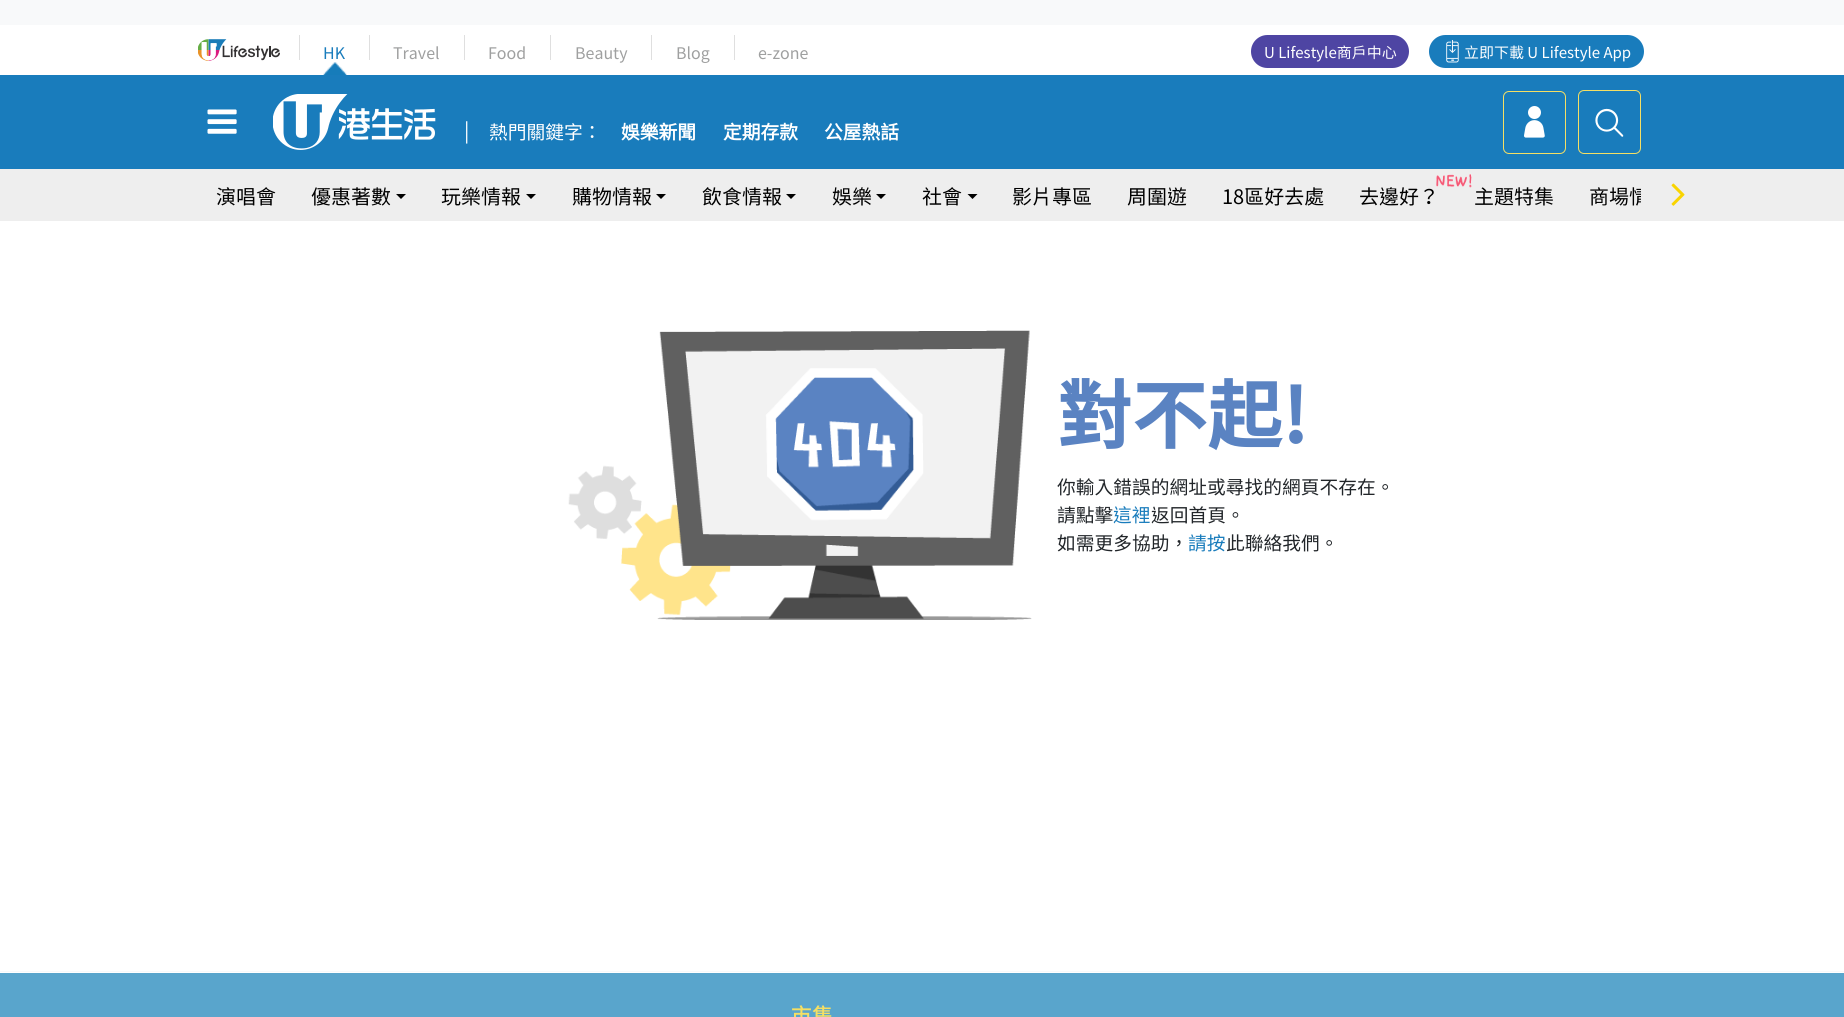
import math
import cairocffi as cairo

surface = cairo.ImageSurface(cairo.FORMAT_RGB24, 1844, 1017)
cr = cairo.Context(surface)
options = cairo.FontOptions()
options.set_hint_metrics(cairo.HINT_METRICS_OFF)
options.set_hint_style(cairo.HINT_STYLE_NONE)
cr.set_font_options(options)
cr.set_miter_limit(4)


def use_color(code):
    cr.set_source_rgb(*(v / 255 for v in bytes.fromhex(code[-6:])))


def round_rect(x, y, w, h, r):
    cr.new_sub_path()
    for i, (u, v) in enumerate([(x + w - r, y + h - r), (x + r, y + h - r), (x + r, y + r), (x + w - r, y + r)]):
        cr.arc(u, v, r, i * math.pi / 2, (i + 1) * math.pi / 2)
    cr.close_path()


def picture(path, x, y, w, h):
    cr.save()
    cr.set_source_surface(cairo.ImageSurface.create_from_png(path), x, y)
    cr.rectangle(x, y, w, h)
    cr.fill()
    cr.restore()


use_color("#ffffff")
cr.paint()
use_color("#f8f9fa")
cr.rectangle(0, 0, 1844, 25)
cr.fill()
picture("img1.png", 198, 39, 82, 22)
use_color("#dfdfdf")
cr.rectangle(299, 35, 1, 25)
cr.fill()
picture("img2.png", 323, 62, 24, 13)
cr.select_font_face("Noto Sans TC")
cr.set_font_size(16)
use_color("#197cbc")
cr.move_to(323, 59)
cr.show_text("HK")
use_color("#dfdfdf")
cr.rectangle(369, 35, 1, 25)
cr.fill()
use_color("#9fa0a0")
cr.move_to(393, 59)
cr.show_text("Travel")
use_color("#dfdfdf")
cr.rectangle(464, 35, 1, 25)
cr.fill()
use_color("#9fa0a0")
cr.move_to(488, 59)
cr.show_text("Food")
use_color("#dfdfdf")
cr.rectangle(550, 35, 1, 25)
cr.fill()
use_color("#9fa0a0")
cr.move_to(575, 59)
cr.show_text("Beauty")
use_color("#dfdfdf")
cr.rectangle(651, 35, 1, 25)
cr.fill()
use_color("#9fa0a0")
cr.move_to(676, 59)
cr.show_text("Blog")
use_color("#dfdfdf")
cr.rectangle(734, 35, 1, 25)
cr.fill()
use_color("#9fa0a0")
cr.move_to(758, 59)
cr.show_text("e-zone")
use_color("#4e45a3")
round_rect(1251, 35, 158, 33, 16.5)
cr.fill()
cr.set_font_size(15)
use_color("#ffffff")
cr.move_to(1264, 58)
cr.show_text("U Lifestyle商戶中心")
use_color("#197cbc")
round_rect(1429, 35, 215, 33, 16.5)
cr.fill()
picture("img3.png", 1446, 40, 13, 23)
use_color("#ffffff")
cr.move_to(1464, 58)
cr.show_text("立即下載 U Lifestyle App")
use_color("#197cbc")
cr.rectangle(0, 75, 1844, 94)
cr.fill()
picture("img4.png", 207, 109, 30, 25)
picture("img5.png", 273, 94, 163, 56)
cr.set_font_size(20)
use_color("#ffffff")
cr.move_to(464, 138)
cr.show_text("|")
cr.select_font_face("Noto Sans CJK HK")
cr.set_font_size(18.75)
cr.move_to(489, 139)
cr.show_text("熱門關鍵字：")
cr.select_font_face("Noto Sans CJK HK", cairo.FONT_SLANT_NORMAL, cairo.FONT_WEIGHT_BOLD)
cr.move_to(621, 139)
cr.show_text("娛樂新聞")
cr.move_to(723, 139)
cr.show_text("定期存款")
cr.move_to(824, 139)
cr.show_text("公屋熱話")
round_rect(1503.5, 91.5, 62, 62, 5.5)
use_color("#f5df63")
cr.set_line_width(1)
cr.stroke()
picture("img6.png", 1524, 106, 21, 32)
round_rect(1578.5, 90.5, 62, 63, 5.5)
cr.stroke()
picture("img7.png", 1595, 108, 29, 29)
use_color("#eeeeee")
cr.rectangle(0, 169, 1844, 52)
cr.fill()
cr.select_font_face("Noto Sans TC")
cr.set_font_size(20)
use_color("#000000")
cr.move_to(216, 204)
cr.show_text("演唱會")
cr.move_to(311, 204)
cr.show_text("優惠著數")
cr.new_path()
cr.move_to(396, 194)
cr.line_to(406, 194)
cr.line_to(401, 199)
cr.close_path()
cr.fill()
cr.move_to(441, 204)
cr.show_text("玩樂情報")
cr.new_path()
cr.move_to(526, 194)
cr.line_to(536, 194)
cr.line_to(531, 199)
cr.close_path()
cr.fill()
cr.move_to(572, 204)
cr.show_text("購物情報")
cr.new_path()
cr.move_to(656, 194)
cr.line_to(666, 194)
cr.line_to(661, 199)
cr.close_path()
cr.fill()
cr.move_to(702, 204)
cr.show_text("飲食情報")
cr.new_path()
cr.move_to(786, 194)
cr.line_to(796, 194)
cr.line_to(791, 199)
cr.close_path()
cr.fill()
cr.move_to(832, 204)
cr.show_text("娛樂")
cr.new_path()
cr.move_to(876, 194)
cr.line_to(886, 194)
cr.line_to(881, 199)
cr.close_path()
cr.fill()
cr.move_to(922, 204)
cr.show_text("社會")
cr.new_path()
cr.move_to(967.5, 194)
cr.line_to(977.5, 194)
cr.line_to(972.5, 199)
cr.close_path()
cr.fill()
cr.move_to(1012, 204)
cr.show_text("影片專區")
cr.move_to(1127, 204)
cr.show_text("周圍遊")
cr.move_to(1222, 204)
cr.show_text("18區好去處")
picture("img8.png", 1436, 174, 36, 14)
cr.move_to(1359, 204)
cr.show_text("去邊好？")
cr.move_to(1474, 204)
cr.show_text("主題特集")
cr.save()
cr.rectangle(204, 169, 1437, 52)
cr.clip()
cr.move_to(1589, 204)
cr.show_text("商場情")
cr.restore()
picture("img9.png", 1671, 183, 14, 23)
picture("img10.png", 568, 330, 464, 290)
cr.select_font_face("Noto Sans TC", cairo.FONT_SLANT_NORMAL, cairo.FONT_WEIGHT_BOLD)
cr.set_font_size(75)
use_color("#5a83c2")
cr.move_to(1057, 443)
cr.show_text("對不起!")
cr.select_font_face("Noto Sans TC")
cr.set_font_size(18.75)
use_color("#212529")
cr.move_to(1057, 494)
cr.show_text("你輸入錯誤的網址或尋找的網頁不存在。")
cr.move_to(1057, 522)
cr.show_text("請點擊")
use_color("#197cbc")
cr.move_to(1113, 522)
cr.show_text("這裡")
use_color("#212529")
cr.move_to(1151, 522)
cr.show_text("返回首頁。")
cr.move_to(1057, 550)
cr.show_text("如需更多協助，")
use_color("#197cbc")
cr.move_to(1188, 550)
cr.show_text("請按")
use_color("#212529")
cr.move_to(1226, 550)
cr.show_text("此聯絡我們。")
use_color("#f8f9fa")
cr.rectangle(0, 971, 1844, 1)
cr.fill()
use_color("#59a5cc")
cr.rectangle(0, 973, 1844, 44)
cr.fill()
cr.select_font_face("Noto Sans TC Medium")
cr.set_font_size(21)
use_color("#f5df63")
cr.move_to(791, 1023)
cr.show_text("市集")
surface.write_to_png("result.png")
